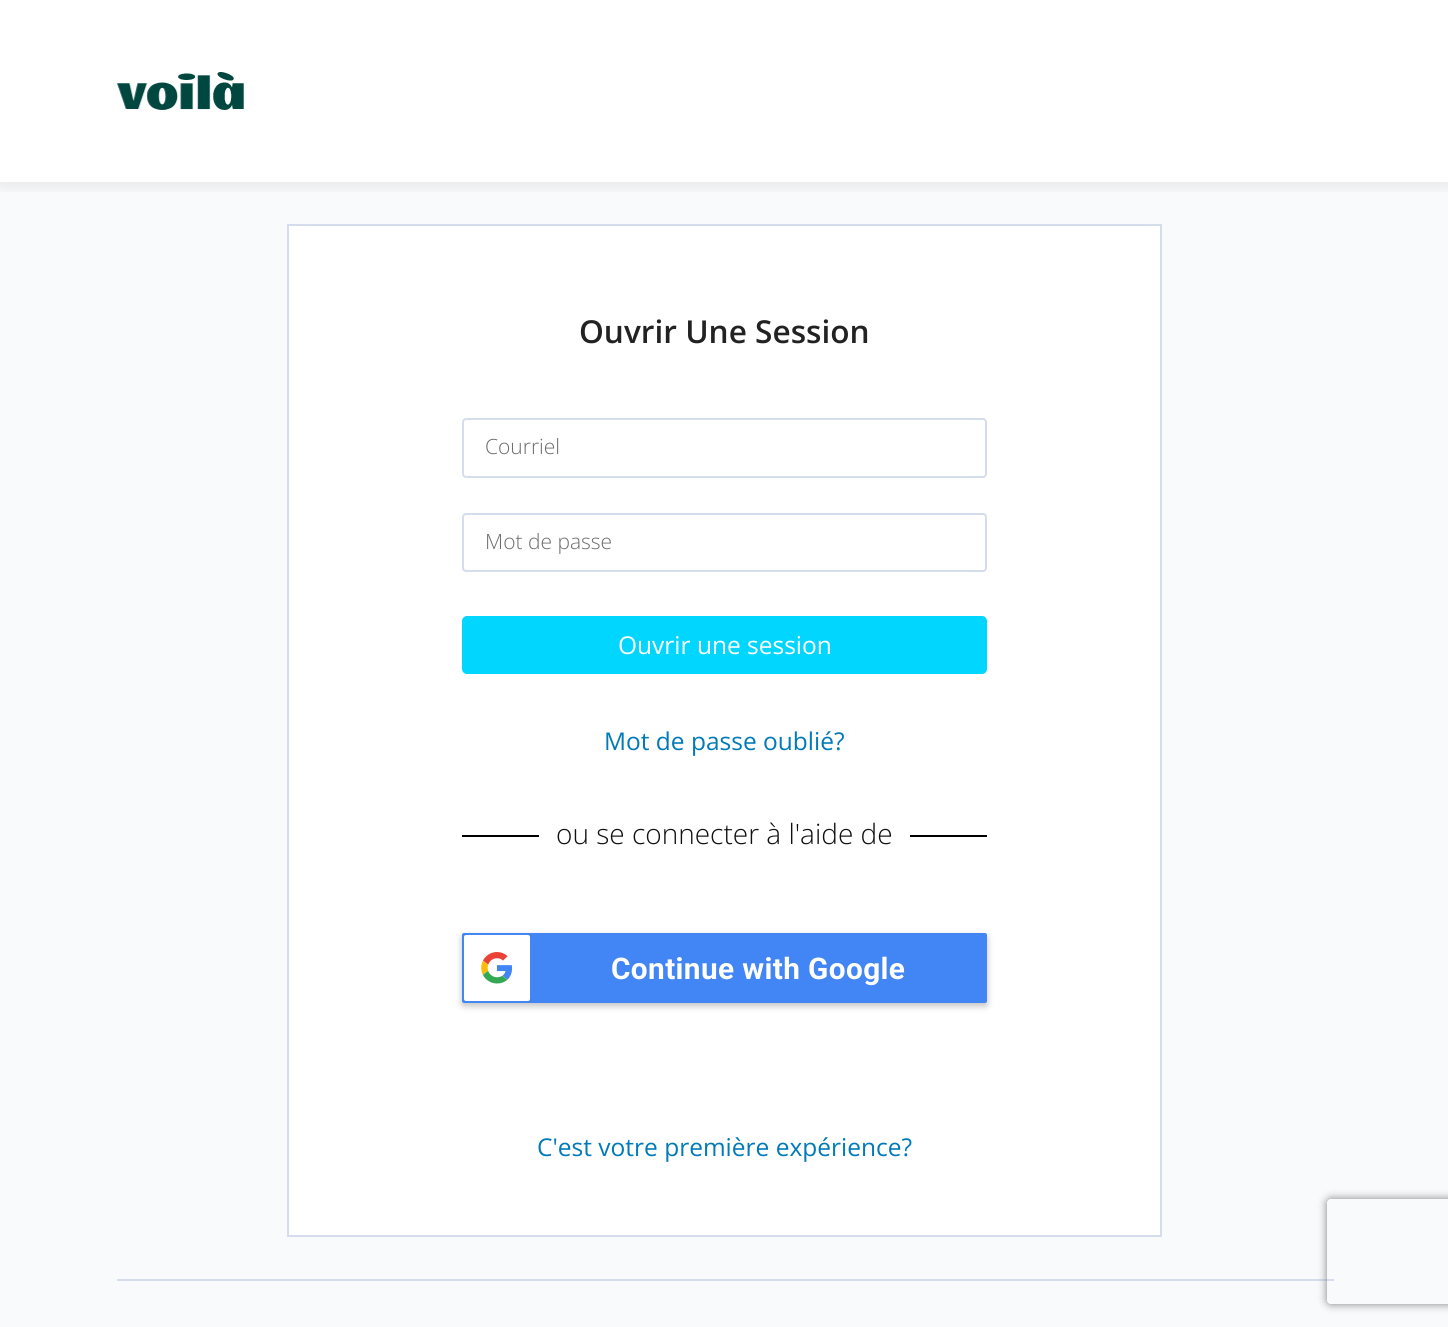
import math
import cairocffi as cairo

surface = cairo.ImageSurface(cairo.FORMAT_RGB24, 1448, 1327)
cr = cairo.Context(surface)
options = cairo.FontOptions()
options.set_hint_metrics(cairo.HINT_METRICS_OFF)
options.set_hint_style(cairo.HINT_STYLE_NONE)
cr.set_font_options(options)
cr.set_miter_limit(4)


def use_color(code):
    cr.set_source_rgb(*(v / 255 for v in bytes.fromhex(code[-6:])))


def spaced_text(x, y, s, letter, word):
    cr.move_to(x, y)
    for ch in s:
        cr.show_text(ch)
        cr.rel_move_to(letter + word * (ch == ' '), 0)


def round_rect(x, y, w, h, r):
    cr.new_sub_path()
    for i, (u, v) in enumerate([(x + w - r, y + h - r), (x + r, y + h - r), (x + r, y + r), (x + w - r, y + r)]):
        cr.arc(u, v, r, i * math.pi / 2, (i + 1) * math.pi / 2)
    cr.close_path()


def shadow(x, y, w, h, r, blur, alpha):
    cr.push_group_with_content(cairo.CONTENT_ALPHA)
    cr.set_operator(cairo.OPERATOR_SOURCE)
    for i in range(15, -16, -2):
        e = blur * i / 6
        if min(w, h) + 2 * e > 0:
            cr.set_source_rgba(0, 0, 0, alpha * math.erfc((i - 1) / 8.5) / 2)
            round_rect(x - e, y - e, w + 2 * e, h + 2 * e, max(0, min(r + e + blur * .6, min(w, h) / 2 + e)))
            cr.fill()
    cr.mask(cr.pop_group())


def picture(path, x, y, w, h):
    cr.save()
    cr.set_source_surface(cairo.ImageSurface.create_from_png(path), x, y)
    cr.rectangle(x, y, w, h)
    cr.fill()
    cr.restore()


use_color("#ffffff")
cr.paint()
use_color("#f8fafc")
cr.rectangle(0, 182, 1448, 1145)
cr.fill()
cr.save()
cr.rectangle(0, 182, 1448, 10)
cr.clip()
use_color("#000000")
shadow(0, 4, 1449, 182, 0, 9, 0.08)
cr.restore()
picture("img1.png", 117, 72, 127, 38)
use_color("#ffffff")
cr.rectangle(288, 225, 873, 1011)
cr.fill_preserve()
use_color("#d5dcec")
cr.stroke()
cr.select_font_face("Open Sans SemiBold")
cr.set_font_size(31.6)
use_color("#222222")
cr.move_to(579, 343)
cr.show_text("Ouvrir Une Session")
round_rect(463, 419, 523, 58, 3)
use_color("#d5dcec")
cr.stroke()
cr.select_font_face("Open Sans Light")
cr.set_font_size(21)
use_color("#6c6c6c")
cr.move_to(485, 454)
cr.show_text("Courriel")
round_rect(463, 514, 523, 57, 3)
use_color("#d5dcec")
cr.stroke()
use_color("#6c6c6c")
cr.move_to(485, 549)
cr.show_text("Mot de passe")
use_color("#00d6ff")
round_rect(463, 617, 523, 56, 4)
cr.fill_preserve()
cr.stroke()
cr.select_font_face("Open Sans")
cr.set_font_size(24.5)
use_color("#ffffff")
cr.move_to(618, 654)
cr.show_text("Ouvrir une session")
use_color("#007ab8")
cr.move_to(604, 750)
cr.show_text("Mot de passe oublié?")
use_color("#000000")
cr.rectangle(462, 835, 525, 2)
cr.fill()
use_color("#ffffff")
cr.rectangle(539, 835, 371, 2)
cr.fill()
cr.select_font_face("Open Sans Light")
cr.set_font_size(28)
use_color("#101010")
cr.move_to(556, 844)
cr.show_text("ou se connecter à l'aide de")
use_color("#000000")
shadow(462, 936, 525, 70, 2, 3.5, 0.25)
use_color("#4285f4")
round_rect(462, 933, 525, 70, 2)
cr.fill()
use_color("#ffffff")
round_rect(464, 935, 66, 66, 2)
cr.fill()
picture("img2.png", 481, 952, 32, 32)
cr.select_font_face("Roboto", cairo.FONT_SLANT_NORMAL, cairo.FONT_WEIGHT_BOLD)
cr.set_font_size(29.75)
spaced_text(611, 979, "Continue with Google", 0.4, 0)
cr.select_font_face("Open Sans")
cr.set_font_size(24.5)
use_color("#007ab8")
cr.move_to(537, 1156)
cr.show_text("C'est votre première expérience?")
use_color("#d5dcec")
cr.rectangle(117, 1279, 1217, 2)
cr.fill()
cr.save()
cr.set_fill_rule(cairo.FILL_RULE_EVEN_ODD)
cr.new_path()
cr.move_to(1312, 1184)
cr.line_to(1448, 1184)
cr.line_to(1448, 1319)
cr.line_to(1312, 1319)
cr.close_path()
cr.move_to(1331, 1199)
cr.line_to(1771, 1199)
cr.curve_to(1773, 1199, 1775, 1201, 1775, 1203)
cr.line_to(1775, 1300)
cr.curve_to(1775, 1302, 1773, 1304, 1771, 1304)
cr.line_to(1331, 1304)
cr.curve_to(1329, 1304, 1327, 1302, 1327, 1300)
cr.line_to(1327, 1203)
cr.curve_to(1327, 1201, 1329, 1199, 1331, 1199)
cr.close_path()
cr.clip()
use_color("#808080")
shadow(1327, 1199, 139, 105, 4, 4.5, 1)
cr.restore()
surface.write_to_png("result.png")
